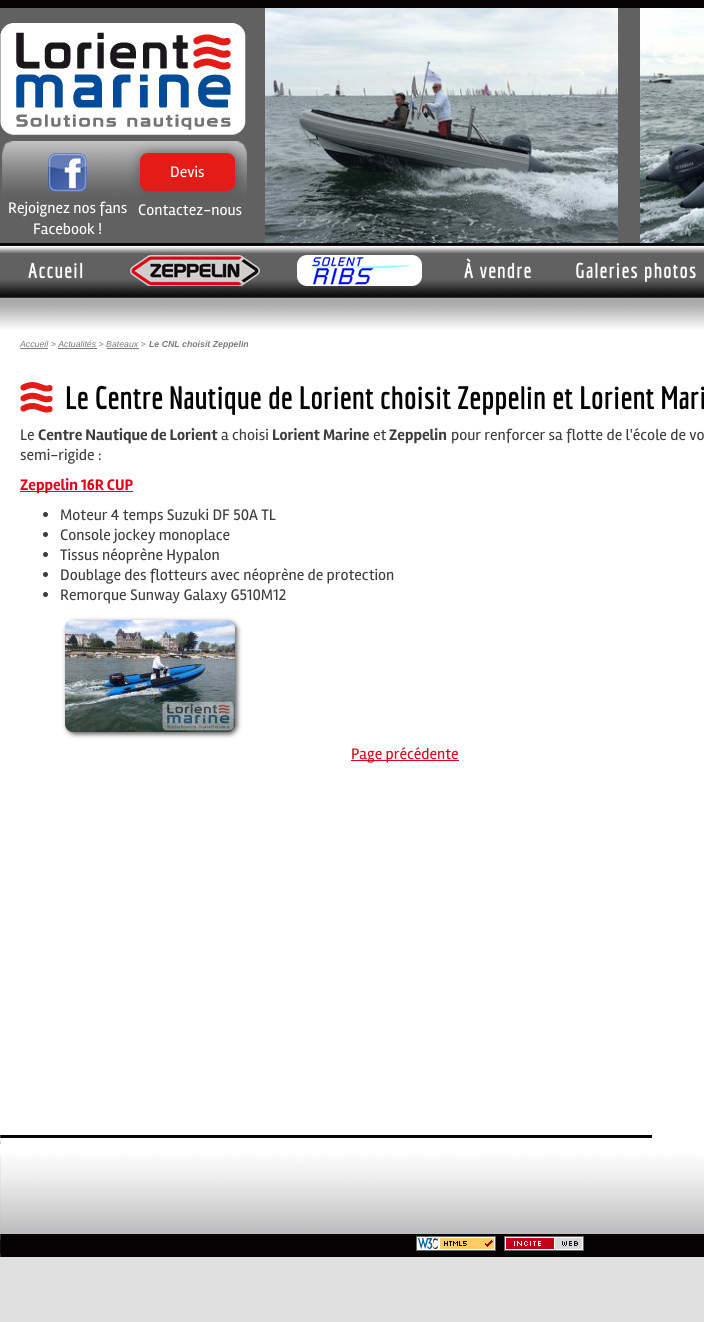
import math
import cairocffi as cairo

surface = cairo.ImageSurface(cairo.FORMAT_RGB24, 704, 1322)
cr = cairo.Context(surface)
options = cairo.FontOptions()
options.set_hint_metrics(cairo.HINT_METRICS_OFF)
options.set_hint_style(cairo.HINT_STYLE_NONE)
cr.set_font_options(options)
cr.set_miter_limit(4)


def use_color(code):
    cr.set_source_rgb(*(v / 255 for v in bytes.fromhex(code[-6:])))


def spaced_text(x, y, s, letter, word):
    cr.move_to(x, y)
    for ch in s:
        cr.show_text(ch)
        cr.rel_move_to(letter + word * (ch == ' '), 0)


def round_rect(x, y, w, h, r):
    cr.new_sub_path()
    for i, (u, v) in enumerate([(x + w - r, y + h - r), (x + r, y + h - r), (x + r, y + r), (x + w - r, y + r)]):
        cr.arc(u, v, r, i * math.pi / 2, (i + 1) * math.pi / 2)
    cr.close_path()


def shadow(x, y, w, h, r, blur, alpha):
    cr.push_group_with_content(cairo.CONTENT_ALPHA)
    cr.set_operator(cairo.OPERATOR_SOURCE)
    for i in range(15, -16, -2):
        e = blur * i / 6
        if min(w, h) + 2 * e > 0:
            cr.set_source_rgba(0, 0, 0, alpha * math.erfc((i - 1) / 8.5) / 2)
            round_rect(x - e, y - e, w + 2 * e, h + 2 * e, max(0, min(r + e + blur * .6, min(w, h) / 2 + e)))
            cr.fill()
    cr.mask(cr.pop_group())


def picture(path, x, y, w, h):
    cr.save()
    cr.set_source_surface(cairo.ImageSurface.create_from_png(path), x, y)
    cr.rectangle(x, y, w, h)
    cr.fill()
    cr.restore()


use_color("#e0e0e0")
cr.paint()
use_color("#ffffff")
cr.rectangle(0, 330, 704, 805)
cr.fill()
picture("img1.png", 0, 299, 704, 31)
picture("img2.png", 0, 0, 704, 245)
picture("img3.png", 0, 23, 246, 112)
picture("img4.png", 265, 8, 353, 235)
picture("img5.png", 640, 8, 64, 235)
picture("img6.png", 48, 153, 39, 39)
cr.select_font_face("Rambla")
cr.set_font_size(15.8)
cr.move_to(8, 213)
cr.show_text("Rejoignez nos fans")
cr.move_to(33, 234)
cr.show_text("Facebook !")
use_color("#555555")
shadow(141, 154, 95, 38, 8, 6, 1)
use_color("#e31c18")
round_rect(140, 153, 95, 38, 8)
cr.fill()
use_color("#ffffff")
cr.move_to(170, 177)
cr.show_text("Devis")
cr.move_to(138, 215)
cr.show_text("Contactez-nous")
picture("img7.png", 0, 245, 704, 54)
cr.select_font_face("Economica", cairo.FONT_SLANT_NORMAL, cairo.FONT_WEIGHT_BOLD)
cr.set_font_size(21)
spaced_text(28, 278, "Accueil", 1, 0)
picture("img8.png", 130, 255, 130, 31)
picture("img9.png", 297, 255, 125, 31)
spaced_text(464, 278, "À vendre", 1, 0)
spaced_text(575, 278, "Galeries photos", 1, 0)
cr.select_font_face("Liberation Sans", cairo.FONT_SLANT_ITALIC)
cr.set_font_size(8.75)
use_color("#7a7a7a")
cr.move_to(20, 347)
cr.show_text("Accueil > Actualités > Bateaux >")
cr.rectangle(20, 348, 28, 1)
cr.fill()
cr.select_font_face("Liberation Sans", cairo.FONT_SLANT_ITALIC, cairo.FONT_WEIGHT_BOLD)
cr.move_to(149, 347)
cr.show_text("Le CNL choisit Zeppelin")
cr.rectangle(58, 348, 39, 1)
cr.fill()
cr.rectangle(107, 348, 32, 1)
cr.fill()
picture("img10.png", 20, 382, 33, 31)
cr.select_font_face("Economica", cairo.FONT_SLANT_NORMAL, cairo.FONT_WEIGHT_BOLD)
cr.set_font_size(31.7)
use_color("#000000")
cr.move_to(65, 409)
cr.show_text("Le Centre Nautique de Lorient choisit Zeppelin et Lorient Mari")
cr.select_font_face("Rambla")
cr.set_font_size(15.8)
use_color("#3d3d3d")
cr.move_to(20, 440)
cr.show_text("Le")
cr.select_font_face("Rambla", cairo.FONT_SLANT_NORMAL, cairo.FONT_WEIGHT_BOLD)
cr.move_to(38, 440)
cr.show_text("Centre Nautique de Lorient")
cr.select_font_face("Rambla")
cr.move_to(221, 440)
cr.show_text("a choisi")
cr.select_font_face("Rambla", cairo.FONT_SLANT_NORMAL, cairo.FONT_WEIGHT_BOLD)
cr.move_to(272, 440)
cr.show_text("Lorient Marine")
cr.select_font_face("Rambla")
cr.move_to(373, 440)
cr.show_text("et")
cr.select_font_face("Rambla", cairo.FONT_SLANT_NORMAL, cairo.FONT_WEIGHT_BOLD)
cr.move_to(389, 440)
cr.show_text("Zeppelin")
cr.select_font_face("Rambla")
cr.move_to(451, 440)
cr.show_text("pour renforcer sa flotte de l'école de vo")
cr.move_to(20, 460)
cr.show_text("semi-rigide :")
use_color("#e2001a")
cr.rectangle(20, 491, 113, 1)
cr.fill()
cr.select_font_face("Rambla", cairo.FONT_SLANT_NORMAL, cairo.FONT_WEIGHT_BOLD)
cr.move_to(20, 490)
cr.show_text("Zeppelin 16R CUP")
use_color("#3d3d3d")
cr.new_path()
cr.arc(45.5, 514.5, 2.5, 0, 2 * math.pi)
cr.fill()
cr.select_font_face("Rambla")
cr.move_to(60, 520)
cr.show_text("Moteur 4 temps Suzuki DF 50A TL")
cr.new_path()
cr.arc(45.5, 534.5, 2.5, 0, 2 * math.pi)
cr.fill()
cr.move_to(60, 540)
cr.show_text("Console jockey monoplace")
cr.new_path()
cr.arc(45.5, 554.5, 2.5, 0, 2 * math.pi)
cr.fill()
cr.move_to(60, 560)
cr.show_text("Tissus néoprène Hypalon")
cr.new_path()
cr.arc(45.5, 574.5, 2.5, 0, 2 * math.pi)
cr.fill()
cr.move_to(60, 580)
cr.show_text("Doublage des flotteurs avec néoprène de protection")
cr.new_path()
cr.arc(45.5, 594.5, 2.5, 0, 2 * math.pi)
cr.fill()
cr.move_to(60, 600)
cr.show_text("Remorque Sunway Galaxy G510M12")
use_color("#555555")
shadow(67, 622, 170, 112, 8, 2.5, 1)
picture("img11.png", 65, 620, 170, 112)
use_color("#e2001a")
cr.rectangle(351, 760, 108, 1)
cr.fill()
cr.move_to(351, 759)
cr.show_text("Page précédente")
picture("img12.png", 0, 1135, 704, 122)
picture("img13.png", 416, 1236, 80, 15)
picture("img14.png", 504, 1236, 80, 15)
surface.write_to_png("result.png")
